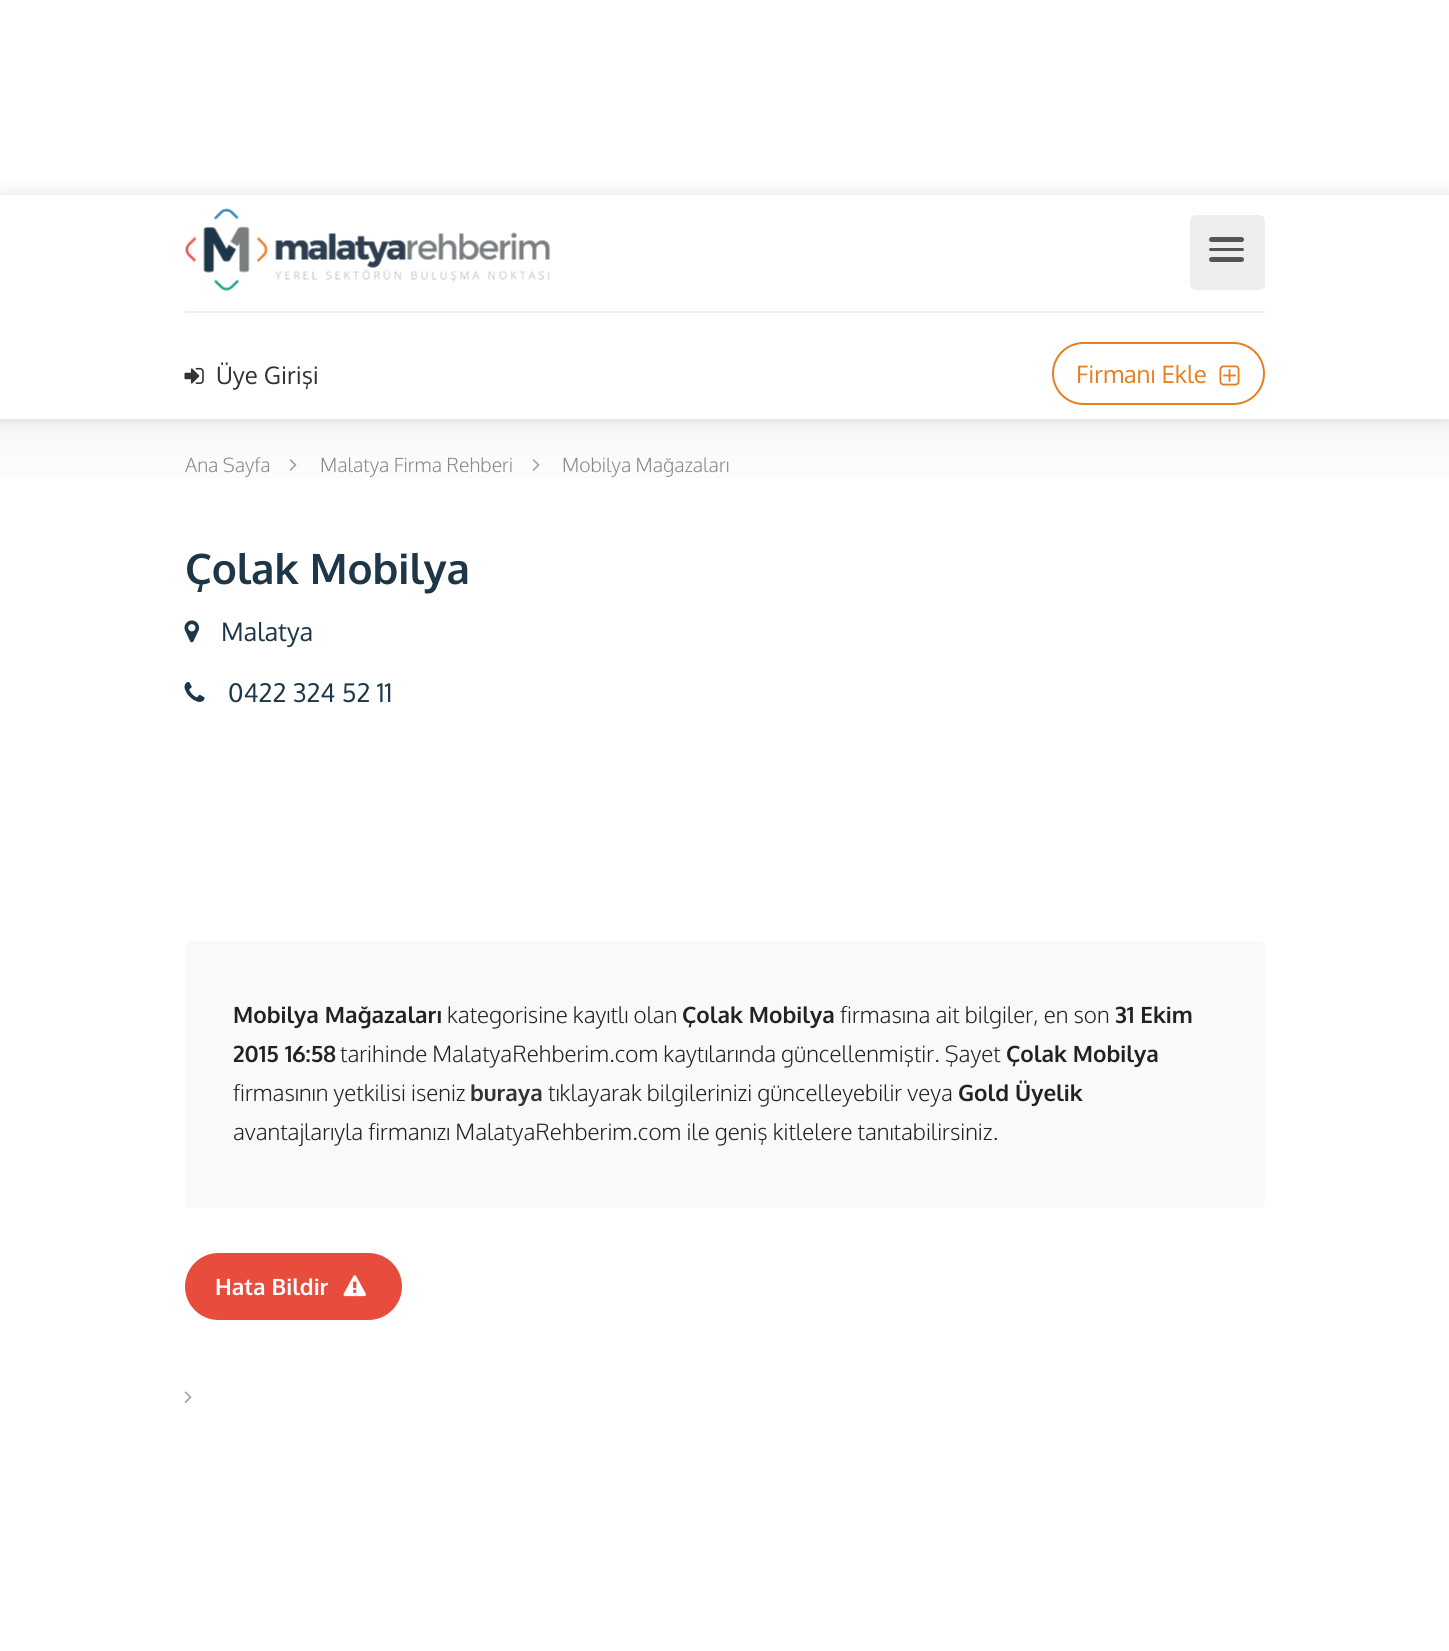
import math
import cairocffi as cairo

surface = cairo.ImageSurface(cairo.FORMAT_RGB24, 1449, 1651)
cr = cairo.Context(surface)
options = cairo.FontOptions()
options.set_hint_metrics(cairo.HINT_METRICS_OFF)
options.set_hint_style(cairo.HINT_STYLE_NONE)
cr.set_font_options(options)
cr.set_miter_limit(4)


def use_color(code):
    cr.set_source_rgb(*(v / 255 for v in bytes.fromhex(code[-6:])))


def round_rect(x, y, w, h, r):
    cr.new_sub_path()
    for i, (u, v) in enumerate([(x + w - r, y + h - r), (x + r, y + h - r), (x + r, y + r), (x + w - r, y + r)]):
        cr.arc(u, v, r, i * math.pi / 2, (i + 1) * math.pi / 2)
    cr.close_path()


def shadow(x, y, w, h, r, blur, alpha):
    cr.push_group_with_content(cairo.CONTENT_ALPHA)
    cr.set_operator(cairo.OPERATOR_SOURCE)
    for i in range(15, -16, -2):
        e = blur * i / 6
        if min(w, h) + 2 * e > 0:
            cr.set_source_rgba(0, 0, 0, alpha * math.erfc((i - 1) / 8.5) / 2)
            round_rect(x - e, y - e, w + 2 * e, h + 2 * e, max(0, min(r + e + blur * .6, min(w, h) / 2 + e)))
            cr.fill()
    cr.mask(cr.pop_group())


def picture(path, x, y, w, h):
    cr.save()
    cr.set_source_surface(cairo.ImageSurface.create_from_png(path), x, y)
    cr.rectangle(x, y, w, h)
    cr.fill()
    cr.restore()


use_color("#ffffff")
cr.paint()
gradient = cairo.LinearGradient(725, 418, 725, 506)
gradient.add_color_stop_rgba(0, 0.969, 0.969, 0.969, 1)
gradient.add_color_stop_rgba(1, 1, 1, 1, 1)
cr.set_source(gradient)
cr.rectangle(0, 419, 1449, 59)
cr.fill()
cr.save()
cr.set_fill_rule(cairo.FILL_RULE_EVEN_ODD)
cr.new_path()
cr.move_to(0, 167)
cr.line_to(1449, 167)
cr.line_to(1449, 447)
cr.line_to(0, 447)
cr.close_path()
cr.move_to(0, 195)
cr.line_to(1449, 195)
cr.line_to(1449, 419)
cr.line_to(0, 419)
cr.close_path()
cr.clip()
use_color("#000000")
shadow(0, 195, 1449, 224, 0, 9, 0.12)
cr.restore()
picture("img1.png", 185, 208, 366, 83)
use_color("#eeeeee")
round_rect(1190, 215, 75, 75, 6)
cr.fill()
use_color("#555555")
round_rect(1209, 257, 35, 5, 2.5)
cr.fill()
round_rect(1209, 237, 35, 5, 2.5)
cr.fill()
round_rect(1209, 248, 35, 3, 1.5)
cr.fill()
use_color("#eeeeee")
cr.rectangle(185, 311, 1080, 2)
cr.fill()
picture("img2.png", 184, 367, 20, 17)
cr.select_font_face("Oxygen")
cr.set_font_size(24)
use_color("#333333")
cr.move_to(216, 384)
cr.show_text("Üye Girişi")
round_rect(1053, 343, 211, 61, 30.5)
use_color("#e67e22")
cr.stroke()
cr.move_to(1076, 383)
cr.show_text("Firmanı Ekle")
picture("img3.png", 1219, 365, 21, 21)
cr.select_font_face("Oxygen Light")
cr.set_font_size(19.5)
use_color("#888888")
cr.move_to(185, 472)
cr.show_text("Ana Sayfa")
picture("img4.png", 289, 459, 8, 12)
cr.move_to(320, 472)
cr.show_text("Malatya Firma Rehberi")
picture("img4.png", 532, 459, 8, 12)
cr.move_to(562, 472)
cr.show_text("Mobilya Mağazaları")
cr.select_font_face("Oxygen", cairo.FONT_SLANT_NORMAL, cairo.FONT_WEIGHT_BOLD)
cr.set_font_size(42)
use_color("#1e3748")
cr.move_to(185, 584)
cr.show_text("Çolak Mobilya")
picture("img5.png", 184, 620, 16, 23)
cr.select_font_face("Oxygen")
cr.set_font_size(25.5)
cr.move_to(221, 641)
cr.show_text("Malatya")
picture("img6.png", 184, 682, 21, 20)
cr.move_to(228, 702)
cr.show_text("0422 324 52 11")
use_color("#f9f9f9")
round_rect(185, 941, 1080, 267, 5)
cr.fill()
cr.select_font_face("Oxygen", cairo.FONT_SLANT_NORMAL, cairo.FONT_WEIGHT_BOLD)
cr.set_font_size(22.5)
use_color("#222222")
cr.move_to(233, 1023)
cr.show_text("Mobilya Mağazaları")
cr.select_font_face("Oxygen Light")
cr.move_to(447, 1023)
cr.show_text("kategorisine kayıtlı olan")
cr.select_font_face("Oxygen", cairo.FONT_SLANT_NORMAL, cairo.FONT_WEIGHT_BOLD)
cr.move_to(682, 1023)
cr.show_text("Çolak Mobilya")
cr.select_font_face("Oxygen Light")
cr.move_to(840, 1023)
cr.show_text("firmasına ait bilgiler, en son")
cr.select_font_face("Oxygen", cairo.FONT_SLANT_NORMAL, cairo.FONT_WEIGHT_BOLD)
cr.move_to(1115, 1023)
cr.show_text("31 Ekim")
cr.move_to(233, 1062)
cr.show_text("2015 16:58")
cr.select_font_face("Oxygen Light")
cr.move_to(340, 1062)
cr.show_text("tarihinde MalatyaRehberim.com kaytılarında güncellenmiştir. Şayet")
cr.select_font_face("Oxygen", cairo.FONT_SLANT_NORMAL, cairo.FONT_WEIGHT_BOLD)
cr.move_to(1006, 1062)
cr.show_text("Çolak Mobilya")
cr.select_font_face("Oxygen Light")
cr.move_to(233, 1101)
cr.show_text("firmasının yetkilisi iseniz")
cr.select_font_face("Oxygen", cairo.FONT_SLANT_NORMAL, cairo.FONT_WEIGHT_BOLD)
use_color("#333333")
cr.move_to(470, 1101)
cr.show_text("buraya")
cr.select_font_face("Oxygen Light")
use_color("#222222")
cr.move_to(548, 1101)
cr.show_text("tıklayarak bilgilerinizi güncelleyebilir veya")
cr.select_font_face("Oxygen", cairo.FONT_SLANT_NORMAL, cairo.FONT_WEIGHT_BOLD)
cr.move_to(958, 1101)
cr.show_text("Gold Üyelik")
cr.select_font_face("Oxygen Light")
cr.move_to(233, 1140)
cr.show_text("avantajlarıyla firmanızı MalatyaRehberim.com ile geniş kitlelere tanıtabilirsiniz.")
use_color("#e74c3c")
round_rect(185, 1253, 217, 67, 33.5)
cr.fill()
cr.select_font_face("Oxygen", cairo.FONT_SLANT_NORMAL, cairo.FONT_WEIGHT_BOLD)
use_color("#ffffff")
cr.move_to(215, 1295)
cr.show_text("Hata Bildir")
picture("img7.png", 343, 1275, 23, 22)
picture("img8.png", 184, 1391, 8, 12)
surface.write_to_png("result.png")
